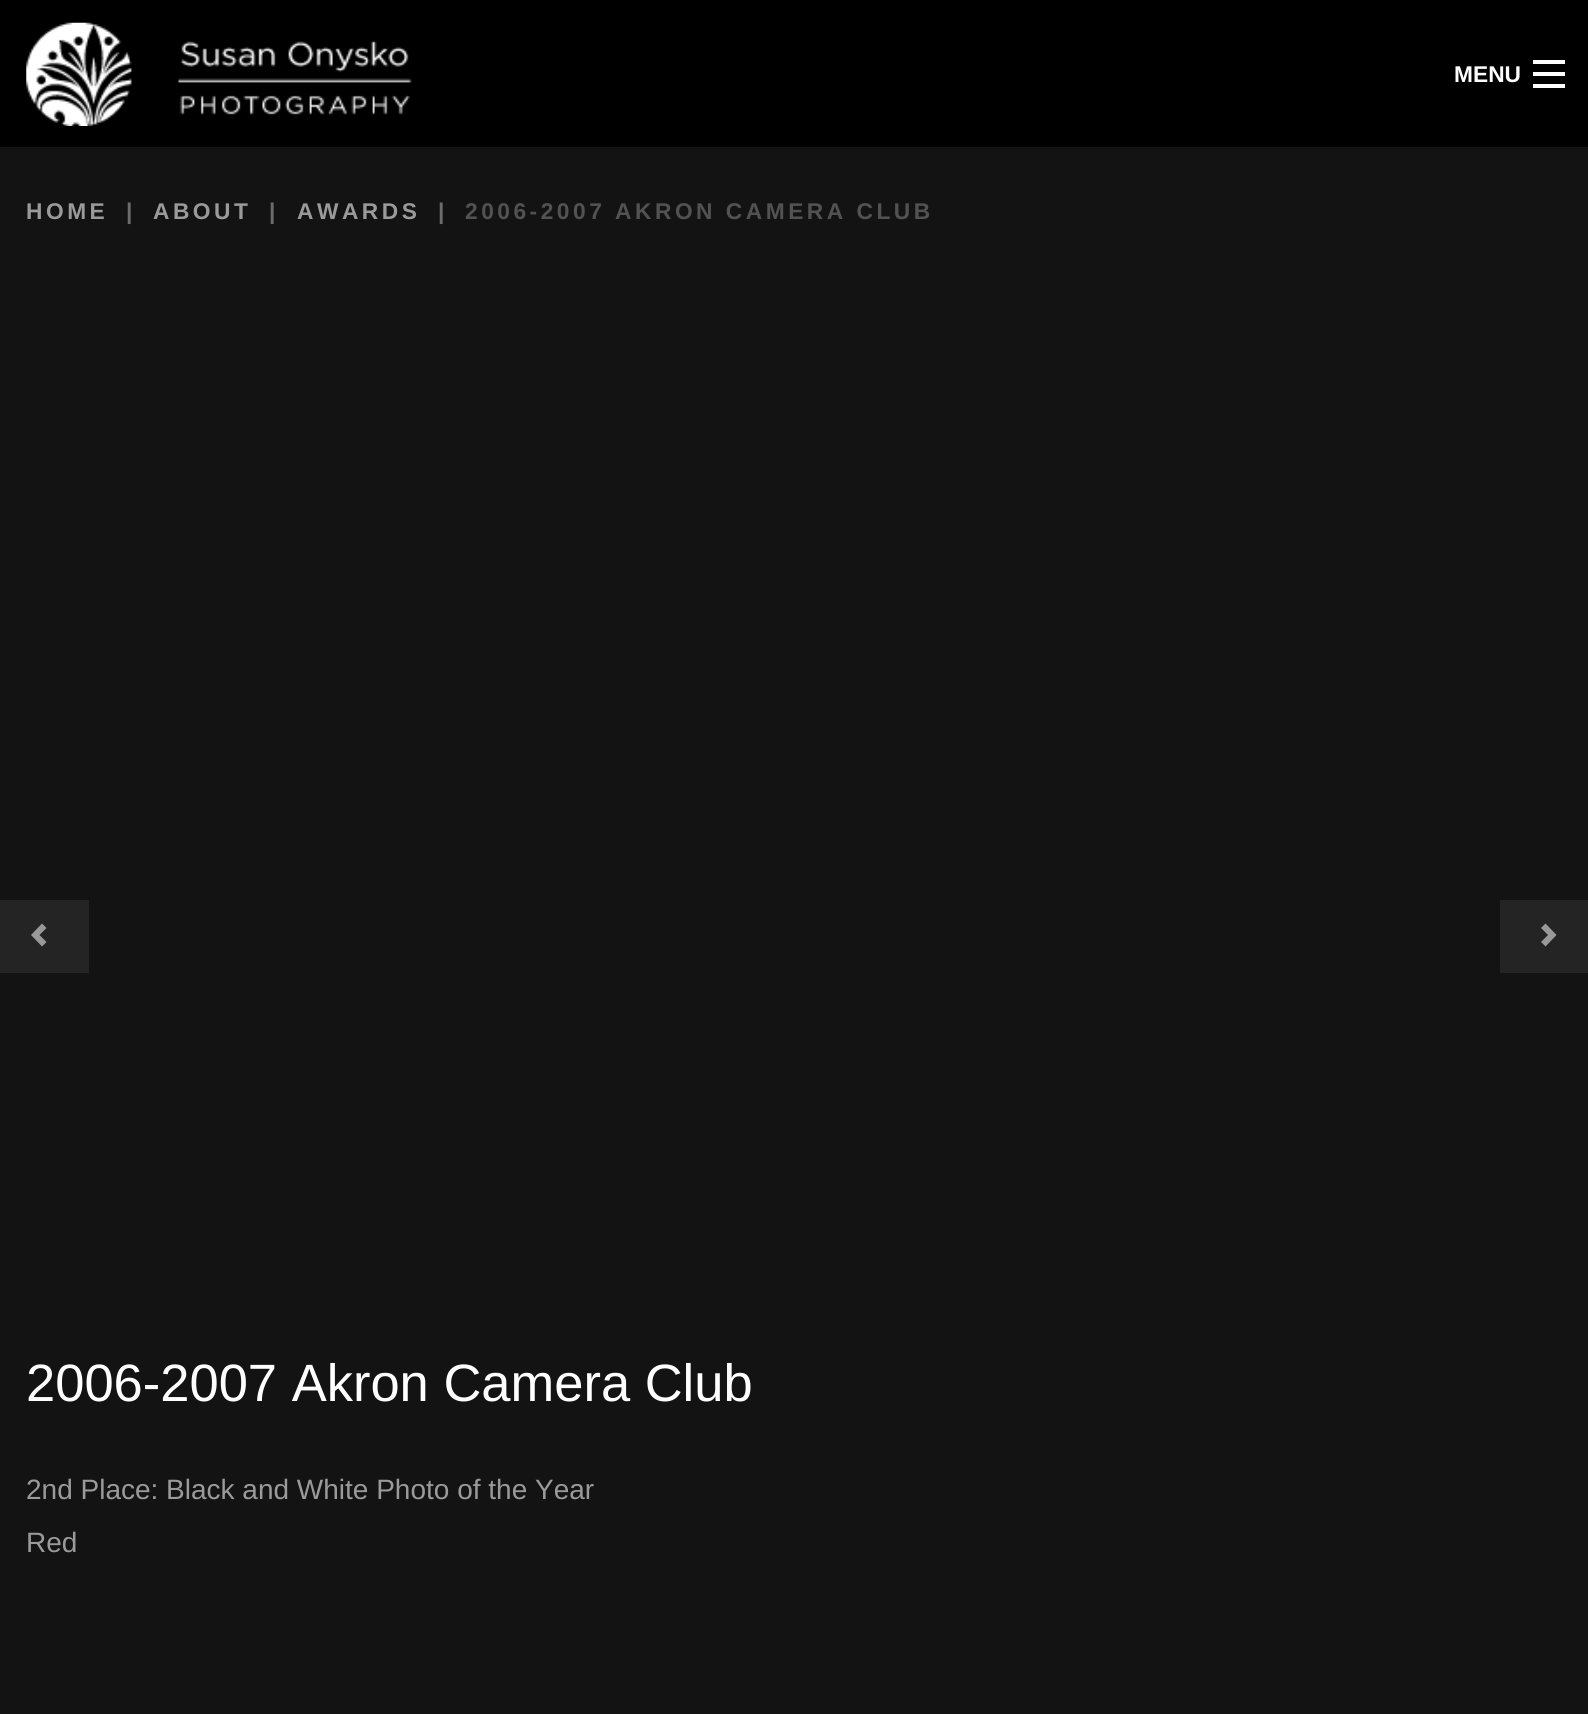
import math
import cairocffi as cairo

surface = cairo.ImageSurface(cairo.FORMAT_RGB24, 1588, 1714)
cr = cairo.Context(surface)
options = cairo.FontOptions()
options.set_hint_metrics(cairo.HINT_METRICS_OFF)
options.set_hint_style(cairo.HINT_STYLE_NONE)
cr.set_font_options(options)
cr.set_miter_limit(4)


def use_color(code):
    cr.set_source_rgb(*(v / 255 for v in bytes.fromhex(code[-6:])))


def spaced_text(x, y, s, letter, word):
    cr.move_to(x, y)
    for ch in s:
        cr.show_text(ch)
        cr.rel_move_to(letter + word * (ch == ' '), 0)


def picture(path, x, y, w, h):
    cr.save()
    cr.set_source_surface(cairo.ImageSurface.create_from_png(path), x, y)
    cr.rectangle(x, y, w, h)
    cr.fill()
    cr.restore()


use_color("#131313")
cr.paint()
use_color("#000000")
cr.rectangle(0, 0, 1588, 147)
cr.fill()
picture("img1.png", 26, 22, 386, 104)
cr.select_font_face("Liberation Sans", cairo.FONT_SLANT_NORMAL, cairo.FONT_WEIGHT_BOLD)
cr.set_font_size(22.75)
use_color("#ffffff")
cr.move_to(1454, 82)
cr.show_text("MENU")
cr.rectangle(1533, 84, 32, 4)
cr.fill()
cr.rectangle(1533, 72, 32, 4)
cr.fill()
cr.rectangle(1533, 60, 32, 4)
cr.fill()
use_color("#9a9a9a")
spaced_text(26, 219, "HOME", 3.5, 0)
use_color("#6c6c6c")
spaced_text(126, 219, "|", 3.5, 0)
use_color("#9a9a9a")
spaced_text(153, 219, "ABOUT", 3.5, 0)
use_color("#6c6c6c")
spaced_text(269, 219, "|", 3.5, 0)
use_color("#9a9a9a")
spaced_text(297, 219, "AWARDS", 3.5, 0)
use_color("#6c6c6c")
spaced_text(438, 219, "|", 3.5, 0)
use_color("#525252")
spaced_text(465, 219, "2006-2007 AKRON CAMERA CLUB", 3.5, 0)
use_color("#242424")
cr.rectangle(0, 900, 89, 73)
cr.fill()
use_color("#999999")
cr.new_path()
cr.move_to(46.5, 942)
cr.line_to(42, 946.5)
cr.line_to(31, 935)
cr.line_to(42, 923.5)
cr.line_to(46.5, 928)
cr.line_to(39.5, 935)
cr.close_path()
cr.fill()
use_color("#242424")
cr.rectangle(1500, 900, 88, 73)
cr.fill()
use_color("#999999")
cr.new_path()
cr.move_to(1541, 942)
cr.line_to(1545.5, 946.5)
cr.line_to(1556.5, 935)
cr.line_to(1545.5, 923.5)
cr.line_to(1541, 928)
cr.line_to(1548, 935)
cr.close_path()
cr.fill()
cr.select_font_face("Liberation Sans")
cr.set_font_size(52.5)
use_color("#ffffff")
cr.move_to(26, 1401)
cr.show_text("2006-2007 Akron Camera Club")
cr.set_font_size(28)
use_color("#9a9a9a")
cr.move_to(26, 1499)
cr.show_text("2nd Place: Black and White Photo of the Year")
cr.move_to(26, 1552)
cr.show_text("Red")
surface.write_to_png("result.png")
